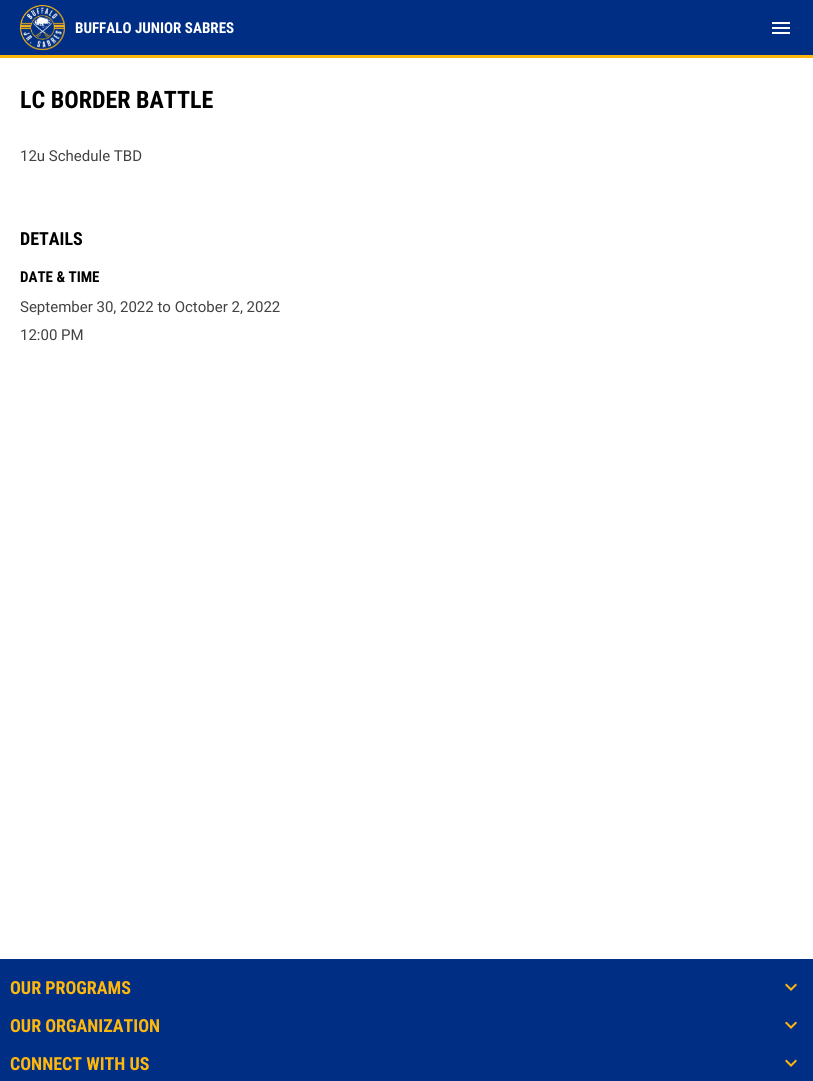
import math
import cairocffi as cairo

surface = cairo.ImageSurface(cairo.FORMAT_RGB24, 813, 1081)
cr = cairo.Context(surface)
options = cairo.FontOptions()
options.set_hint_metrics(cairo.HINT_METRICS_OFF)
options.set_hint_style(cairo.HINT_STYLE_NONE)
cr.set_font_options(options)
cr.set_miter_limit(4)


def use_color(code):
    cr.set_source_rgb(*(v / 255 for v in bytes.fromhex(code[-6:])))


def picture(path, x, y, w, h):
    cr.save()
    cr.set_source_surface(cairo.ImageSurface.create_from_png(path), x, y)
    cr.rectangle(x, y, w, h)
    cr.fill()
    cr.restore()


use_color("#ffffff")
cr.paint()
use_color("#012e85")
cr.rectangle(0, 0, 813, 55)
cr.fill()
picture("img1.png", 20, 5, 45, 45)
cr.select_font_face("Roboto Condensed", cairo.FONT_SLANT_NORMAL, cairo.FONT_WEIGHT_BOLD)
cr.set_font_size(15)
use_color("#ffffff")
cr.move_to(75, 33)
cr.show_text("BUFFALO JUNIOR SABRES")
picture("img2.png", 772, 22, 18, 12)
use_color("#ffb70c")
cr.rectangle(0, 55, 813, 3)
cr.fill()
cr.set_font_size(24)
use_color("#000000")
cr.move_to(20, 108)
cr.show_text("LC BORDER BATTLE")
cr.select_font_face("Roboto")
cr.set_font_size(15)
use_color("#424242")
cr.move_to(20, 161)
cr.show_text("12u Schedule TBD")
cr.select_font_face("Roboto Condensed", cairo.FONT_SLANT_NORMAL, cairo.FONT_WEIGHT_BOLD)
cr.set_font_size(18)
use_color("#000000")
cr.move_to(20, 245)
cr.show_text("DETAILS")
cr.set_font_size(15)
cr.move_to(20, 282)
cr.show_text("DATE & TIME")
cr.select_font_face("Roboto")
use_color("#424242")
cr.move_to(20, 312)
cr.show_text("September 30, 2022 to October 2, 2022")
cr.move_to(20, 340)
cr.show_text("12:00 PM")
use_color("#012e85")
cr.rectangle(0, 959, 813, 122)
cr.fill()
cr.select_font_face("Roboto Condensed", cairo.FONT_SLANT_NORMAL, cairo.FONT_WEIGHT_BOLD)
cr.set_font_size(18)
use_color("#ffb70c")
cr.move_to(10, 994)
cr.show_text("OUR PROGRAMS")
picture("img3.png", 785, 983, 12, 8)
cr.move_to(10, 1032)
cr.show_text("OUR ORGANIZATION")
picture("img3.png", 785, 1021, 12, 8)
cr.move_to(10, 1070)
cr.show_text("CONNECT WITH US")
picture("img3.png", 785, 1059, 12, 8)
surface.write_to_png("result.png")
